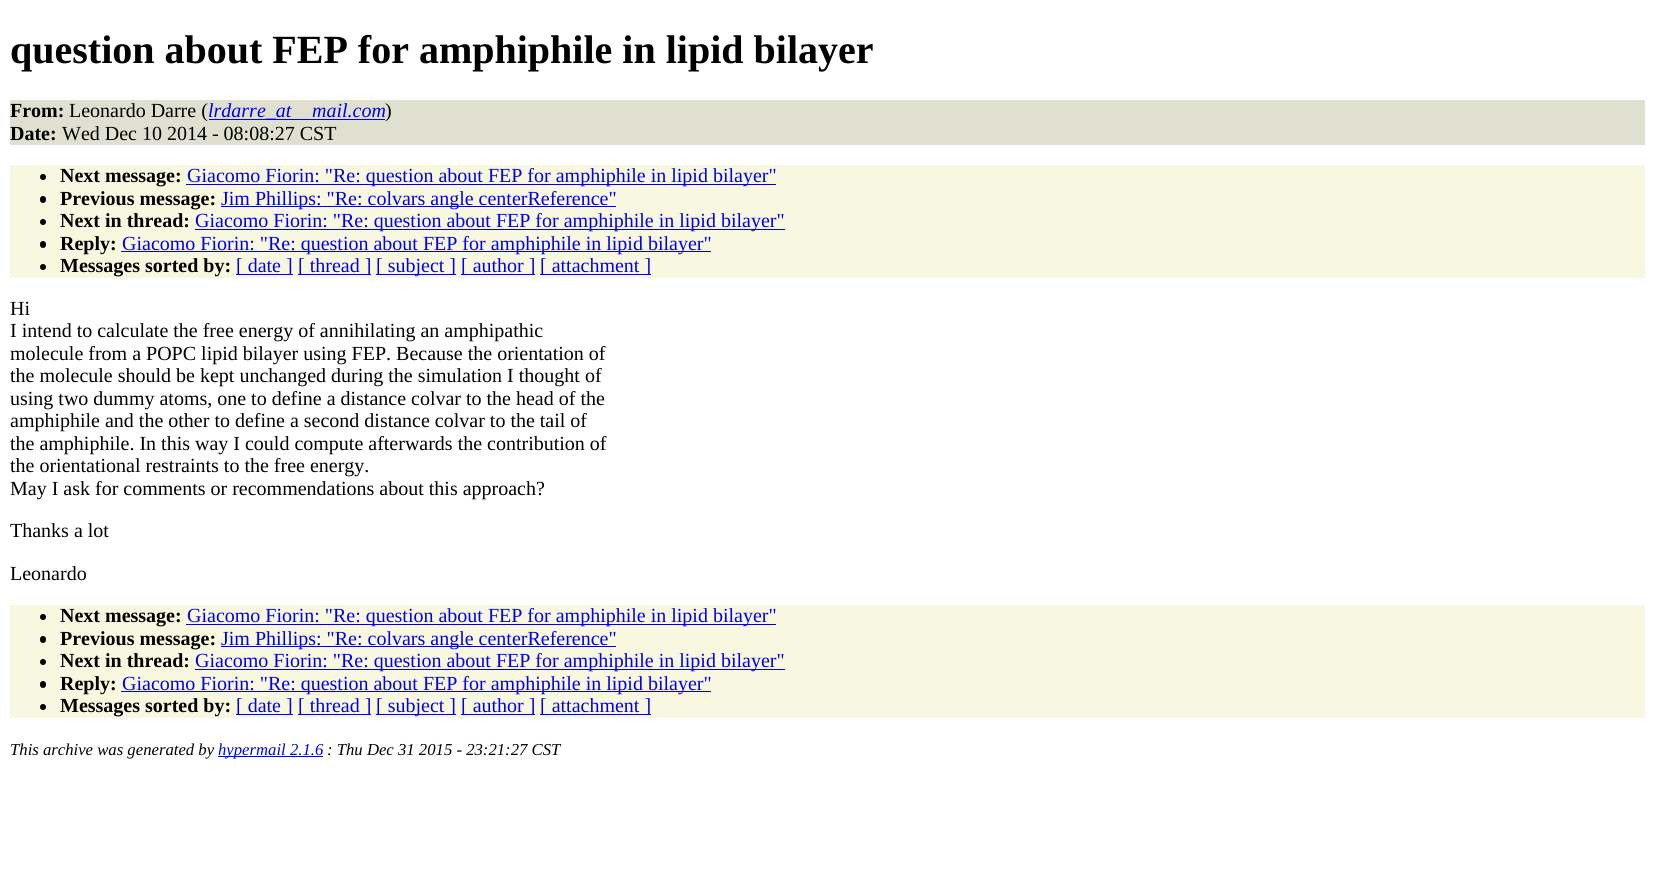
import math
import cairocffi as cairo

surface = cairo.ImageSurface(cairo.FORMAT_RGB24, 1654, 883)
cr = cairo.Context(surface)
options = cairo.FontOptions()
options.set_hint_metrics(cairo.HINT_METRICS_OFF)
options.set_hint_style(cairo.HINT_STYLE_NONE)
cr.set_font_options(options)
cr.set_miter_limit(4)


def use_color(code):
    cr.set_source_rgb(*(v / 255 for v in bytes.fromhex(code[-6:])))


def round_rect(x, y, w, h, r):
    cr.new_sub_path()
    for i, (u, v) in enumerate([(x + w - r, y + h - r), (x + r, y + h - r), (x + r, y + r), (x + w - r, y + r)]):
        cr.arc(u, v, r, i * math.pi / 2, (i + 1) * math.pi / 2)
    cr.close_path()


use_color("#ffffff")
cr.paint()
cr.select_font_face("Liberation Serif", cairo.FONT_SLANT_NORMAL, cairo.FONT_WEIGHT_BOLD)
cr.set_font_size(40)
use_color("#000000")
cr.move_to(10, 63)
cr.show_text("question about FEP for amphiphile in lipid bilayer")
use_color("#e0e0d0")
cr.rectangle(10, 100, 1635, 45)
cr.fill()
cr.set_font_size(20)
use_color("#000000")
cr.move_to(10, 117)
cr.show_text("From:")
cr.select_font_face("Liberation Serif")
cr.move_to(69, 117)
cr.show_text("Leonardo Darre (")
use_color("#0000ee")
cr.rectangle(209, 119, 176, 1)
cr.fill()
cr.select_font_face("Liberation Serif", cairo.FONT_SLANT_ITALIC)
cr.move_to(208, 117)
cr.show_text("lrdarre_at")
cr.move_to(312, 117)
cr.show_text("mail.com")
cr.select_font_face("Liberation Serif")
use_color("#000000")
cr.move_to(385, 117)
cr.show_text(")")
cr.select_font_face("Liberation Serif", cairo.FONT_SLANT_NORMAL, cairo.FONT_WEIGHT_BOLD)
cr.move_to(10, 140)
cr.show_text("Date:")
cr.select_font_face("Liberation Serif")
cr.move_to(62, 140)
cr.show_text("Wed Dec 10 2014 - 08:08:27 CST")
use_color("#f8f8e0")
cr.rectangle(10, 165, 1635, 113)
cr.fill()
use_color("#000000")
cr.arc(43, 177, 3, 0, 2 * math.pi)
cr.fill()
cr.select_font_face("Liberation Serif", cairo.FONT_SLANT_NORMAL, cairo.FONT_WEIGHT_BOLD)
cr.move_to(60, 182)
cr.show_text("Next message:")
use_color("#0000ee")
cr.rectangle(186, 184, 590, 1)
cr.fill()
cr.select_font_face("Liberation Serif")
cr.move_to(187, 182)
cr.show_text("Giacomo Fiorin: \"Re: question about FEP for amphiphile in lipid bilayer\"")
use_color("#000000")
round_rect(40, 196, 6, 7, 3)
cr.fill()
cr.select_font_face("Liberation Serif", cairo.FONT_SLANT_NORMAL, cairo.FONT_WEIGHT_BOLD)
cr.move_to(60, 205)
cr.show_text("Previous message:")
use_color("#0000ee")
cr.rectangle(221, 206, 395, 1)
cr.fill()
cr.select_font_face("Liberation Serif")
cr.move_to(221, 205)
cr.show_text("Jim Phillips: \"Re: colvars angle centerReference\"")
use_color("#000000")
cr.new_path()
cr.arc(43, 222, 3, 0, 2 * math.pi)
cr.fill()
cr.select_font_face("Liberation Serif", cairo.FONT_SLANT_NORMAL, cairo.FONT_WEIGHT_BOLD)
cr.move_to(60, 227)
cr.show_text("Next in thread:")
use_color("#0000ee")
cr.rectangle(195, 229, 590, 1)
cr.fill()
cr.select_font_face("Liberation Serif")
cr.move_to(195, 227)
cr.show_text("Giacomo Fiorin: \"Re: question about FEP for amphiphile in lipid bilayer\"")
use_color("#000000")
round_rect(40, 241, 6, 7, 3)
cr.fill()
cr.select_font_face("Liberation Serif", cairo.FONT_SLANT_NORMAL, cairo.FONT_WEIGHT_BOLD)
cr.move_to(60, 250)
cr.show_text("Reply:")
use_color("#0000ee")
cr.rectangle(121, 251, 590, 1)
cr.fill()
cr.select_font_face("Liberation Serif")
cr.move_to(122, 250)
cr.show_text("Giacomo Fiorin: \"Re: question about FEP for amphiphile in lipid bilayer\"")
use_color("#000000")
cr.new_path()
cr.arc(43, 267, 3, 0, 2 * math.pi)
cr.fill()
cr.select_font_face("Liberation Serif", cairo.FONT_SLANT_NORMAL, cairo.FONT_WEIGHT_BOLD)
cr.move_to(60, 272)
cr.show_text("Messages sorted by:")
use_color("#0000ee")
cr.rectangle(236, 274, 57, 1)
cr.fill()
cr.select_font_face("Liberation Serif")
cr.move_to(236, 272)
cr.show_text("[ date ]")
cr.rectangle(298, 274, 73, 1)
cr.fill()
cr.move_to(298, 272)
cr.show_text("[ thread ]")
cr.rectangle(376, 274, 80, 1)
cr.fill()
cr.move_to(376, 272)
cr.show_text("[ subject ]")
cr.rectangle(461, 274, 74, 1)
cr.fill()
cr.move_to(461, 272)
cr.show_text("[ author ]")
cr.rectangle(540, 274, 111, 1)
cr.fill()
cr.move_to(540, 272)
cr.show_text("[ attachment ]")
use_color("#000000")
cr.move_to(10, 315)
cr.show_text("Hi")
cr.move_to(10, 337)
cr.show_text("I intend to calculate the free energy of annihilating an amphipathic")
cr.move_to(10, 360)
cr.show_text("molecule from a POPC lipid bilayer using FEP. Because the orientation of")
cr.move_to(10, 382)
cr.show_text("the molecule should be kept unchanged during the simulation I thought of")
cr.move_to(10, 405)
cr.show_text("using two dummy atoms, one to define a distance colvar to the head of the")
cr.move_to(10, 427)
cr.show_text("amphiphile and the other to define a second distance colvar to the tail of")
cr.move_to(10, 450)
cr.show_text("the amphiphile. In this way I could compute afterwards the contribution of")
cr.move_to(10, 472)
cr.show_text("the orientational restraints to the free energy.")
cr.move_to(10, 495)
cr.show_text("May I ask for comments or recommendations about this approach?")
cr.move_to(10, 537)
cr.show_text("Thanks a lot")
cr.move_to(10, 580)
cr.show_text("Leonardo")
use_color("#f8f8e0")
cr.rectangle(10, 605, 1635, 113)
cr.fill()
use_color("#000000")
cr.arc(43, 617, 3, 0, 2 * math.pi)
cr.fill()
cr.select_font_face("Liberation Serif", cairo.FONT_SLANT_NORMAL, cairo.FONT_WEIGHT_BOLD)
cr.move_to(60, 622)
cr.show_text("Next message:")
use_color("#0000ee")
cr.rectangle(186, 624, 590, 1)
cr.fill()
cr.select_font_face("Liberation Serif")
cr.move_to(187, 622)
cr.show_text("Giacomo Fiorin: \"Re: question about FEP for amphiphile in lipid bilayer\"")
use_color("#000000")
round_rect(40, 636, 6, 7, 3)
cr.fill()
cr.select_font_face("Liberation Serif", cairo.FONT_SLANT_NORMAL, cairo.FONT_WEIGHT_BOLD)
cr.move_to(60, 645)
cr.show_text("Previous message:")
use_color("#0000ee")
cr.rectangle(221, 646, 395, 1)
cr.fill()
cr.select_font_face("Liberation Serif")
cr.move_to(221, 645)
cr.show_text("Jim Phillips: \"Re: colvars angle centerReference\"")
use_color("#000000")
cr.new_path()
cr.arc(43, 662, 3, 0, 2 * math.pi)
cr.fill()
cr.select_font_face("Liberation Serif", cairo.FONT_SLANT_NORMAL, cairo.FONT_WEIGHT_BOLD)
cr.move_to(60, 667)
cr.show_text("Next in thread:")
use_color("#0000ee")
cr.rectangle(195, 669, 590, 1)
cr.fill()
cr.select_font_face("Liberation Serif")
cr.move_to(195, 667)
cr.show_text("Giacomo Fiorin: \"Re: question about FEP for amphiphile in lipid bilayer\"")
use_color("#000000")
round_rect(40, 681, 6, 7, 3)
cr.fill()
cr.select_font_face("Liberation Serif", cairo.FONT_SLANT_NORMAL, cairo.FONT_WEIGHT_BOLD)
cr.move_to(60, 690)
cr.show_text("Reply:")
use_color("#0000ee")
cr.rectangle(121, 691, 590, 1)
cr.fill()
cr.select_font_face("Liberation Serif")
cr.move_to(122, 690)
cr.show_text("Giacomo Fiorin: \"Re: question about FEP for amphiphile in lipid bilayer\"")
use_color("#000000")
cr.new_path()
cr.arc(43, 707, 3, 0, 2 * math.pi)
cr.fill()
cr.select_font_face("Liberation Serif", cairo.FONT_SLANT_NORMAL, cairo.FONT_WEIGHT_BOLD)
cr.move_to(60, 712)
cr.show_text("Messages sorted by:")
use_color("#0000ee")
cr.rectangle(236, 714, 57, 1)
cr.fill()
cr.select_font_face("Liberation Serif")
cr.move_to(236, 712)
cr.show_text("[ date ]")
cr.rectangle(298, 714, 73, 1)
cr.fill()
cr.move_to(298, 712)
cr.show_text("[ thread ]")
cr.rectangle(376, 714, 80, 1)
cr.fill()
cr.move_to(376, 712)
cr.show_text("[ subject ]")
cr.rectangle(461, 714, 74, 1)
cr.fill()
cr.move_to(461, 712)
cr.show_text("[ author ]")
cr.rectangle(540, 714, 111, 1)
cr.fill()
cr.move_to(540, 712)
cr.show_text("[ attachment ]")
cr.select_font_face("Liberation Serif", cairo.FONT_SLANT_ITALIC)
cr.set_font_size(16.7)
use_color("#000000")
cr.move_to(10, 755)
cr.show_text("This archive was generated by")
use_color("#0000ee")
cr.rectangle(218, 756, 105, 1)
cr.fill()
cr.move_to(218, 755)
cr.show_text("hypermail 2.1.6")
use_color("#000000")
cr.move_to(327, 755)
cr.show_text(": Thu Dec 31 2015 - 23:21:27 CST")
surface.write_to_png("result.png")
